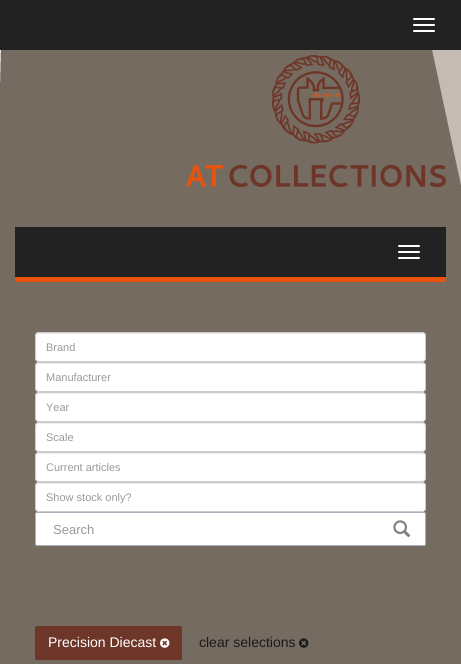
import math
import cairocffi as cairo

surface = cairo.ImageSurface(cairo.FORMAT_RGB24, 461, 664)
cr = cairo.Context(surface)
options = cairo.FontOptions()
options.set_hint_metrics(cairo.HINT_METRICS_OFF)
options.set_hint_style(cairo.HINT_STYLE_NONE)
cr.set_font_options(options)
cr.set_miter_limit(4)


def use_color(code):
    cr.set_source_rgb(*(v / 255 for v in bytes.fromhex(code[-6:])))


def round_rect(x, y, w, h, r):
    cr.new_sub_path()
    for i, (u, v) in enumerate([(x + w - r, y + h - r), (x + r, y + h - r), (x + r, y + r), (x + w - r, y + r)]):
        cr.arc(u, v, r, i * math.pi / 2, (i + 1) * math.pi / 2)
    cr.close_path()


def picture(path, x, y, w, h):
    cr.save()
    cr.set_source_surface(cairo.ImageSurface.create_from_png(path), x, y)
    cr.rectangle(x, y, w, h)
    cr.fill()
    cr.restore()


use_color("#ededed")
cr.paint()
picture("img1.png", 0, 50, 461, 614)
use_color("#222222")
cr.rectangle(0, 0, 461, 50)
cr.fill()
use_color("#ffffff")
round_rect(413, 18, 22, 2, 1)
cr.fill()
round_rect(413, 24, 22, 2, 1)
cr.fill()
round_rect(413, 30, 22, 2, 1)
cr.fill()
picture("img2.png", 186, 55, 260, 132)
use_color("#222222")
cr.rectangle(15, 227, 431, 50)
cr.fill()
use_color("#e8530c")
cr.rectangle(15, 277, 431, 5)
cr.fill()
use_color("#ffffff")
round_rect(398, 245, 22, 2, 1)
cr.fill()
round_rect(398, 251, 22, 2, 1)
cr.fill()
round_rect(398, 257, 22, 2, 1)
cr.fill()
round_rect(35, 332, 391, 30, 4)
cr.fill()
use_color("#ececec")
cr.new_path()
cr.move_to(39, 334)
cr.line_to(422, 334)
cr.curve_to(424, 334, 425, 335, 425, 337)
cr.curve_to(425, 335, 424, 333, 422, 333)
cr.line_to(39, 333)
cr.line_to(37, 334)
cr.line_to(36, 337)
cr.curve_to(36, 335, 37, 334, 39, 334)
cr.close_path()
cr.fill()
round_rect(35.5, 332.5, 390, 29, 3.5)
use_color("#cccccc")
cr.set_line_width(1)
cr.stroke()
cr.select_font_face("Liberation Sans")
cr.set_font_size(11)
use_color("#999999")
cr.move_to(46, 351)
cr.show_text("Brand")
use_color("#ffffff")
round_rect(35, 362, 391, 30, 4)
cr.fill()
use_color("#ececec")
cr.new_path()
cr.move_to(39, 364)
cr.line_to(422, 364)
cr.curve_to(424, 364, 425, 365, 425, 367)
cr.curve_to(425, 365, 424, 363, 422, 363)
cr.line_to(39, 363)
cr.line_to(37, 364)
cr.line_to(36, 367)
cr.curve_to(36, 365, 37, 364, 39, 364)
cr.close_path()
cr.fill()
round_rect(35.5, 362.5, 390, 29, 3.5)
use_color("#cccccc")
cr.stroke()
use_color("#999999")
cr.move_to(46, 381)
cr.show_text("Manufacturer")
use_color("#ffffff")
round_rect(35, 392, 391, 30, 4)
cr.fill()
use_color("#ececec")
cr.new_path()
cr.move_to(39, 394)
cr.line_to(422, 394)
cr.curve_to(424, 394, 425, 395, 425, 397)
cr.curve_to(425, 395, 424, 393, 422, 393)
cr.line_to(39, 393)
cr.line_to(37, 394)
cr.line_to(36, 397)
cr.curve_to(36, 395, 37, 394, 39, 394)
cr.close_path()
cr.fill()
round_rect(35.5, 392.5, 390, 29, 3.5)
use_color("#cccccc")
cr.stroke()
use_color("#999999")
cr.move_to(46, 411)
cr.show_text("Year")
use_color("#ffffff")
round_rect(35, 422, 391, 30, 4)
cr.fill()
use_color("#ececec")
cr.new_path()
cr.move_to(39, 424)
cr.line_to(422, 424)
cr.curve_to(424, 424, 425, 425, 425, 427)
cr.curve_to(425, 425, 424, 423, 422, 423)
cr.line_to(39, 423)
cr.line_to(37, 424)
cr.line_to(36, 427)
cr.curve_to(36, 425, 37, 424, 39, 424)
cr.close_path()
cr.fill()
round_rect(35.5, 422.5, 390, 29, 3.5)
use_color("#cccccc")
cr.stroke()
use_color("#999999")
cr.move_to(46, 441)
cr.show_text("Scale")
use_color("#ffffff")
round_rect(35, 452, 391, 30, 4)
cr.fill()
use_color("#ececec")
cr.new_path()
cr.move_to(39, 454)
cr.line_to(422, 454)
cr.curve_to(424, 454, 425, 455, 425, 457)
cr.curve_to(425, 455, 424, 453, 422, 453)
cr.line_to(39, 453)
cr.line_to(37, 454)
cr.line_to(36, 457)
cr.curve_to(36, 455, 37, 454, 39, 454)
cr.close_path()
cr.fill()
round_rect(35.5, 452.5, 390, 29, 3.5)
use_color("#cccccc")
cr.stroke()
use_color("#999999")
cr.move_to(46, 471)
cr.show_text("Current articles")
use_color("#ffffff")
round_rect(35, 482, 391, 30, 4)
cr.fill()
use_color("#ececec")
cr.new_path()
cr.move_to(39, 484)
cr.line_to(422, 484)
cr.curve_to(424, 484, 425, 485, 425, 487)
cr.curve_to(425, 485, 424, 483, 422, 483)
cr.line_to(39, 483)
cr.line_to(37, 484)
cr.line_to(36, 487)
cr.curve_to(36, 485, 37, 484, 39, 484)
cr.close_path()
cr.fill()
round_rect(35.5, 482.5, 390, 29, 3.5)
use_color("#cccccc")
cr.stroke()
use_color("#999999")
cr.move_to(46, 501)
cr.show_text("Show stock only?")
use_color("#ffffff")
round_rect(35.5, 512.5, 390, 33, 1.5)
cr.fill_preserve()
use_color("#aab2bd")
cr.stroke()
cr.set_font_size(13)
use_color("#999999")
cr.move_to(53, 534)
cr.show_text("Search")
picture("img3.png", 393, 520, 18, 18)
use_color("#6e3628")
round_rect(35.5, 626.5, 146, 33, 1.5)
cr.fill_preserve()
cr.stroke()
cr.set_font_size(14)
use_color("#ffffff")
cr.move_to(48, 647)
cr.show_text("Precision Diecast")
picture("img4.png", 160, 638, 10, 10)
use_color("#1a1a1b")
cr.move_to(199, 647)
cr.show_text("clear selections")
picture("img5.png", 299, 638, 10, 10)
surface.write_to_png("result.png")
